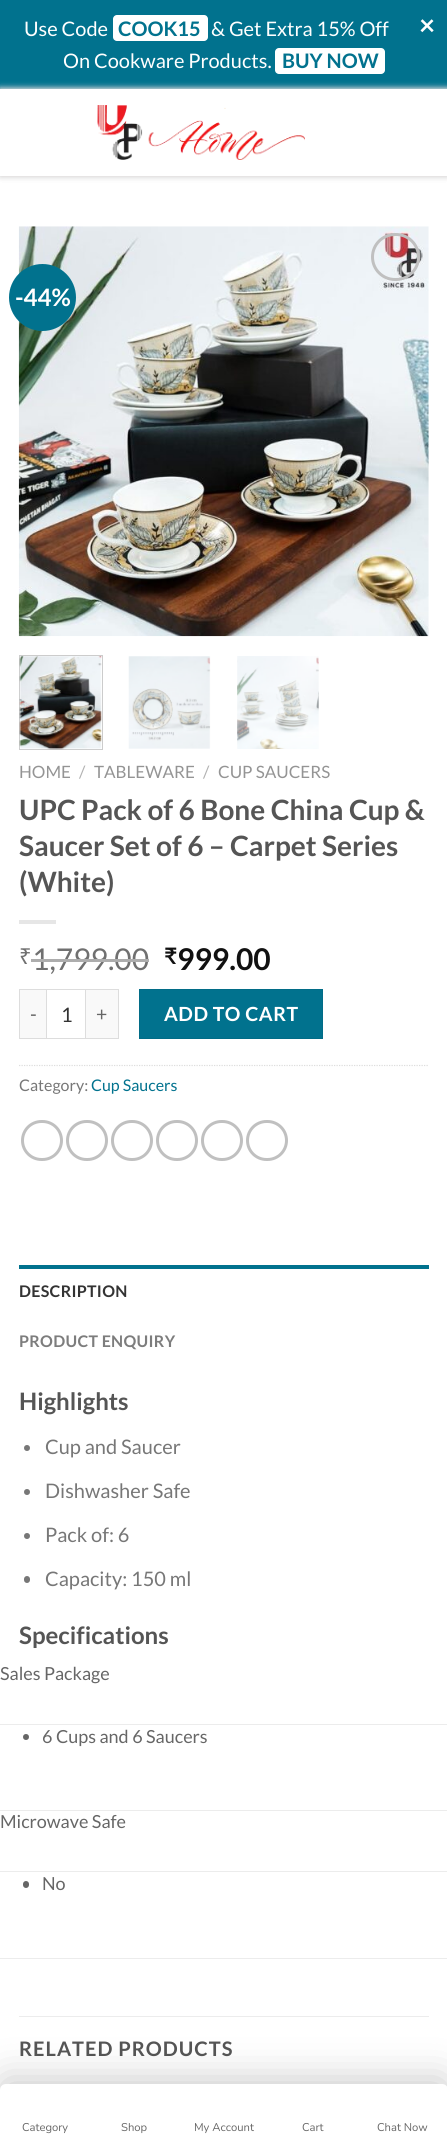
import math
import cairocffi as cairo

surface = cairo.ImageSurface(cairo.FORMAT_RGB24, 447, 2151)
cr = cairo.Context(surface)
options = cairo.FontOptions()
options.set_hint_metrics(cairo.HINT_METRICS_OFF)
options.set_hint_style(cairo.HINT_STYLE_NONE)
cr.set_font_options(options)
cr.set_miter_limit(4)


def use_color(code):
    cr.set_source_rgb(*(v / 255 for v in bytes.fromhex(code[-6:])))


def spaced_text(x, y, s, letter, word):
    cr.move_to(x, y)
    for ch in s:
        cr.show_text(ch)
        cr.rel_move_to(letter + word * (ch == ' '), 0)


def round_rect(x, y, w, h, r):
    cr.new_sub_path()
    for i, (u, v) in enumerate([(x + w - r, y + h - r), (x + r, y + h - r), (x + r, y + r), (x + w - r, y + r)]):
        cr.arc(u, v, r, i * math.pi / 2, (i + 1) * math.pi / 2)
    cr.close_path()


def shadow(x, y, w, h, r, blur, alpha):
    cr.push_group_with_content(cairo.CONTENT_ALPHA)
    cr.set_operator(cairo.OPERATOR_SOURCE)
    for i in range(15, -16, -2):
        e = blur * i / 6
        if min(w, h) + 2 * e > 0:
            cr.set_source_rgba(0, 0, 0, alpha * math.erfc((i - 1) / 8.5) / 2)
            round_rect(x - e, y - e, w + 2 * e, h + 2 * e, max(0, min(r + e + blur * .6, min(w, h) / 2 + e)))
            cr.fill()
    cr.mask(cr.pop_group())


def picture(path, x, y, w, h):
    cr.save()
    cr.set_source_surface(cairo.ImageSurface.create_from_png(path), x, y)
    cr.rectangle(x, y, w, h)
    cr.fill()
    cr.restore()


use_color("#ffffff")
cr.paint()
use_color("#01728e")
cr.rectangle(0, 0, 447, 89)
cr.fill()
cr.select_font_face("Lato")
cr.set_font_size(20)
use_color("#ffffff")
cr.move_to(24, 36)
cr.show_text("Use Code")
round_rect(113, 15, 95, 26, 4)
cr.fill()
cr.select_font_face("Lato", cairo.FONT_SLANT_NORMAL, cairo.FONT_WEIGHT_BOLD)
use_color("#01728e")
cr.move_to(118, 36)
cr.show_text("COOK15")
cr.select_font_face("Lato")
use_color("#ffffff")
cr.move_to(211, 36)
cr.show_text("& Get Extra 15% Off")
cr.select_font_face("Lato", cairo.FONT_SLANT_NORMAL, cairo.FONT_WEIGHT_BOLD)
cr.set_font_size(28)
cr.move_to(419, 35)
cr.show_text("×")
cr.select_font_face("Lato")
cr.set_font_size(20)
cr.move_to(63, 68)
cr.show_text("On Cookware Products.")
round_rect(275, 48, 110, 26, 4)
cr.fill()
cr.select_font_face("Lato", cairo.FONT_SLANT_NORMAL, cairo.FONT_WEIGHT_BOLD)
use_color("#01728e")
cr.move_to(282, 68)
cr.show_text("BUY NOW")
cr.save()
cr.set_fill_rule(cairo.FILL_RULE_EVEN_ODD)
cr.new_path()
cr.move_to(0, 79)
cr.line_to(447, 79)
cr.line_to(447, 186)
cr.line_to(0, 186)
cr.close_path()
cr.move_to(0, 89)
cr.line_to(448, 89)
cr.line_to(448, 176)
cr.line_to(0, 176)
cr.close_path()
cr.clip()
use_color("#dad9d9")
shadow(0, 89, 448, 87, 0, 3, 1)
shadow(0, 89, 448, 87, 0, 3, 1)
cr.restore()
picture("img1.png", 97, 105, 208, 55)
picture("img2.png", 18, 226, 411, 411)
round_rect(372.5, 234.5, 46, 45, 22.5)
use_color("#c0c0c0")
cr.set_line_width(3)
cr.stroke()
use_color("#01728e")
cr.arc(42.5, 297.5, 33.5, 0, 2 * math.pi)
cr.fill()
cr.set_font_size(24)
use_color("#ffffff")
cr.move_to(15, 306)
cr.show_text("-44%")
cr.rectangle(19.5, 655.5, 83, 94)
use_color("#cccccc")
cr.set_line_width(1)
cr.stroke()
picture("img3.png", 19, 656, 83, 94)
picture("img4.png", 128, 656, 83, 93)
picture("img5.png", 237, 656, 82, 93)
cr.select_font_face("Lato")
cr.set_font_size(17)
use_color("#949494")
cr.move_to(19, 778)
cr.show_text("HOME")
use_color("#b2b2b2")
cr.move_to(79, 778)
cr.show_text("/")
use_color("#949494")
cr.move_to(94, 778)
cr.show_text("TABLEWARE")
use_color("#b2b2b2")
cr.move_to(203, 778)
cr.show_text("/")
use_color("#949494")
cr.move_to(218, 778)
cr.show_text("CUP SAUCERS")
cr.select_font_face("Lato", cairo.FONT_SLANT_NORMAL, cairo.FONT_WEIGHT_BOLD)
cr.set_font_size(28)
use_color("#555555")
cr.move_to(19, 820)
cr.show_text("UPC Pack of 6 Bone China Cup &")
cr.move_to(19, 856)
cr.show_text("Saucer Set of 6 – Carpet Series")
cr.move_to(19, 892)
cr.show_text("(White)")
use_color("#e6e6e6")
cr.rectangle(19, 920, 37, 4)
cr.fill()
cr.select_font_face("Noto Sans")
cr.set_font_size(22)
use_color("#707070")
cr.move_to(19, 964)
cr.show_text("₹")
cr.select_font_face("Lato")
cr.set_font_size(30)
cr.move_to(32, 970)
cr.show_text("1,799.00")
use_color("#adadad")
cr.rectangle(31, 959, 118, 3)
cr.fill()
cr.select_font_face("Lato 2", cairo.FONT_SLANT_NORMAL, cairo.FONT_WEIGHT_BOLD)
cr.set_font_size(22)
use_color("#111111")
cr.move_to(164, 964)
cr.show_text("₹")
cr.select_font_face("Lato", cairo.FONT_SLANT_NORMAL, cairo.FONT_WEIGHT_BOLD)
cr.set_font_size(30)
cr.move_to(177, 970)
cr.show_text("999.00")
use_color("#f9f9f9")
cr.rectangle(20, 990, 26, 48)
cr.fill()
use_color("#dddddd")
cr.rectangle(19, 989, 27, 1)
cr.fill()
cr.rectangle(19, 1038, 27, 1)
cr.fill()
cr.rectangle(19, 989, 1, 50)
cr.fill()
cr.select_font_face("Lato")
cr.set_font_size(19.5)
use_color("#666666")
spaced_text(30, 1021, "-", 0.5, 0)
cr.rectangle(46.5, 989.5, 39, 49)
use_color("#dddddd")
cr.stroke()
cr.set_font_size(20)
use_color("#333333")
cr.move_to(61, 1022)
cr.show_text("1")
use_color("#f9f9f9")
cr.rectangle(86, 990, 32, 48)
cr.fill()
use_color("#dddddd")
cr.rectangle(86, 989, 33, 1)
cr.fill()
cr.rectangle(118, 989, 1, 50)
cr.fill()
cr.rectangle(86, 1038, 33, 1)
cr.fill()
cr.set_font_size(19.5)
use_color("#666666")
spaced_text(96, 1021, "+", 0.5, 0)
use_color("#01728e")
cr.rectangle(139.5, 989.5, 183, 49)
cr.fill_preserve()
use_color("#016c87")
cr.stroke()
cr.select_font_face("Lato", cairo.FONT_SLANT_NORMAL, cairo.FONT_WEIGHT_BOLD)
use_color("#ffffff")
spaced_text(164, 1021, "ADD TO CART", 0.5, 0)
cr.new_path()
cr.move_to(19, 1065.5)
cr.line_to(429, 1065.5)
use_color("#dddddd")
cr.set_line_width(1.2)
cr.set_dash([1.25, 1.25])
cr.stroke()
cr.select_font_face("Lato")
cr.set_font_size(16)
use_color("#777777")
cr.move_to(19, 1091)
cr.show_text("Category:")
use_color("#01728e")
cr.move_to(91, 1091)
cr.show_text("Cup Saucers")
round_rect(22.5, 1121.5, 39, 38, 19)
use_color("#c0c0c0")
cr.set_line_width(3)
cr.set_dash([])
cr.stroke()
round_rect(67.5, 1121.5, 39, 38, 19)
cr.stroke()
round_rect(112.5, 1121.5, 39, 38, 19)
cr.stroke()
round_rect(157.5, 1121.5, 39, 38, 19)
cr.stroke()
round_rect(202.5, 1121.5, 39, 38, 19)
cr.stroke()
round_rect(247.5, 1121.5, 39, 38, 19)
cr.stroke()
use_color("#01728e")
cr.rectangle(19, 1265, 410, 4)
cr.fill()
cr.select_font_face("Lato", cairo.FONT_SLANT_NORMAL, cairo.FONT_WEIGHT_BOLD)
use_color("#333333")
spaced_text(19, 1297, "DESCRIPTION", 0.3, 0)
use_color("#7d7d7d")
spaced_text(19, 1347, "PRODUCT ENQUIRY", 0.3, 0)
cr.set_font_size(24)
use_color("#555555")
cr.move_to(19, 1410)
cr.show_text("Highlights")
use_color("#777777")
cr.new_path()
cr.arc(27, 1448, 3, 0, 2 * math.pi)
cr.fill()
cr.select_font_face("Lato")
cr.set_font_size(20)
cr.move_to(45, 1454)
cr.show_text("Cup and Saucer")
cr.new_path()
cr.arc(27, 1492, 3, 0, 2 * math.pi)
cr.fill()
cr.move_to(45, 1498)
cr.show_text("Dishwasher Safe")
cr.new_path()
cr.arc(27, 1536, 3, 0, 2 * math.pi)
cr.fill()
cr.move_to(45, 1542)
cr.show_text("Pack of: 6")
round_rect(24, 1576, 6, 7, 3)
cr.fill()
cr.move_to(45, 1586)
cr.show_text("Capacity: 150 ml")
cr.select_font_face("Lato", cairo.FONT_SLANT_NORMAL, cairo.FONT_WEIGHT_BOLD)
cr.set_font_size(24)
use_color("#555555")
cr.move_to(19, 1644)
cr.show_text("Specifications")
use_color("#ececec")
cr.rectangle(0, 1724, 447, 1)
cr.fill()
cr.select_font_face("Lato")
cr.set_font_size(18)
use_color("#666666")
cr.move_to(0, 1680)
cr.show_text("Sales Package")
use_color("#ececec")
cr.rectangle(0, 1810, 447, 1)
cr.fill()
use_color("#666666")
cr.arc(26, 1737, 3, 0, 2 * math.pi)
cr.fill()
cr.move_to(42, 1743)
cr.show_text("6 Cups and 6 Saucers")
use_color("#ececec")
cr.rectangle(0, 1871, 447, 1)
cr.fill()
use_color("#666666")
cr.move_to(0, 1828)
cr.show_text("Microwave Safe")
use_color("#ececec")
cr.rectangle(0, 1958, 447, 1)
cr.fill()
use_color("#666666")
round_rect(23, 1881, 6, 7, 3)
cr.fill()
cr.move_to(42, 1890)
cr.show_text("No")
use_color("#ececec")
cr.rectangle(19, 2016, 410, 1)
cr.fill()
cr.select_font_face("Lato", cairo.FONT_SLANT_NORMAL, cairo.FONT_WEIGHT_BOLD)
cr.set_font_size(20)
use_color("#555555")
spaced_text(19, 2056, "RELATED PRODUCTS", 1, 0)
use_color("#000000")
shadow(0, 2078, 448, 67, 6, 19, 0.2)
use_color("#ffffff")
cr.new_path()
cr.move_to(6, 2084)
cr.line_to(442, 2084)
cr.curve_to(445.5, 2084, 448, 2086.5, 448, 2090)
cr.line_to(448, 2151)
cr.line_to(0, 2151)
cr.line_to(0, 2090)
cr.curve_to(0, 2086.5, 2.5, 2084, 6, 2084)
cr.close_path()
cr.fill()
cr.select_font_face("Nunito")
cr.set_font_size(11.25)
use_color("#666666")
cr.move_to(22, 2131)
cr.show_text("Category")
cr.move_to(121, 2131)
cr.show_text("Shop")
cr.move_to(194, 2131)
cr.show_text("My Account")
cr.move_to(302, 2131)
cr.show_text("Cart")
cr.move_to(377, 2131)
cr.show_text("Chat Now")
surface.write_to_png("result.png")
